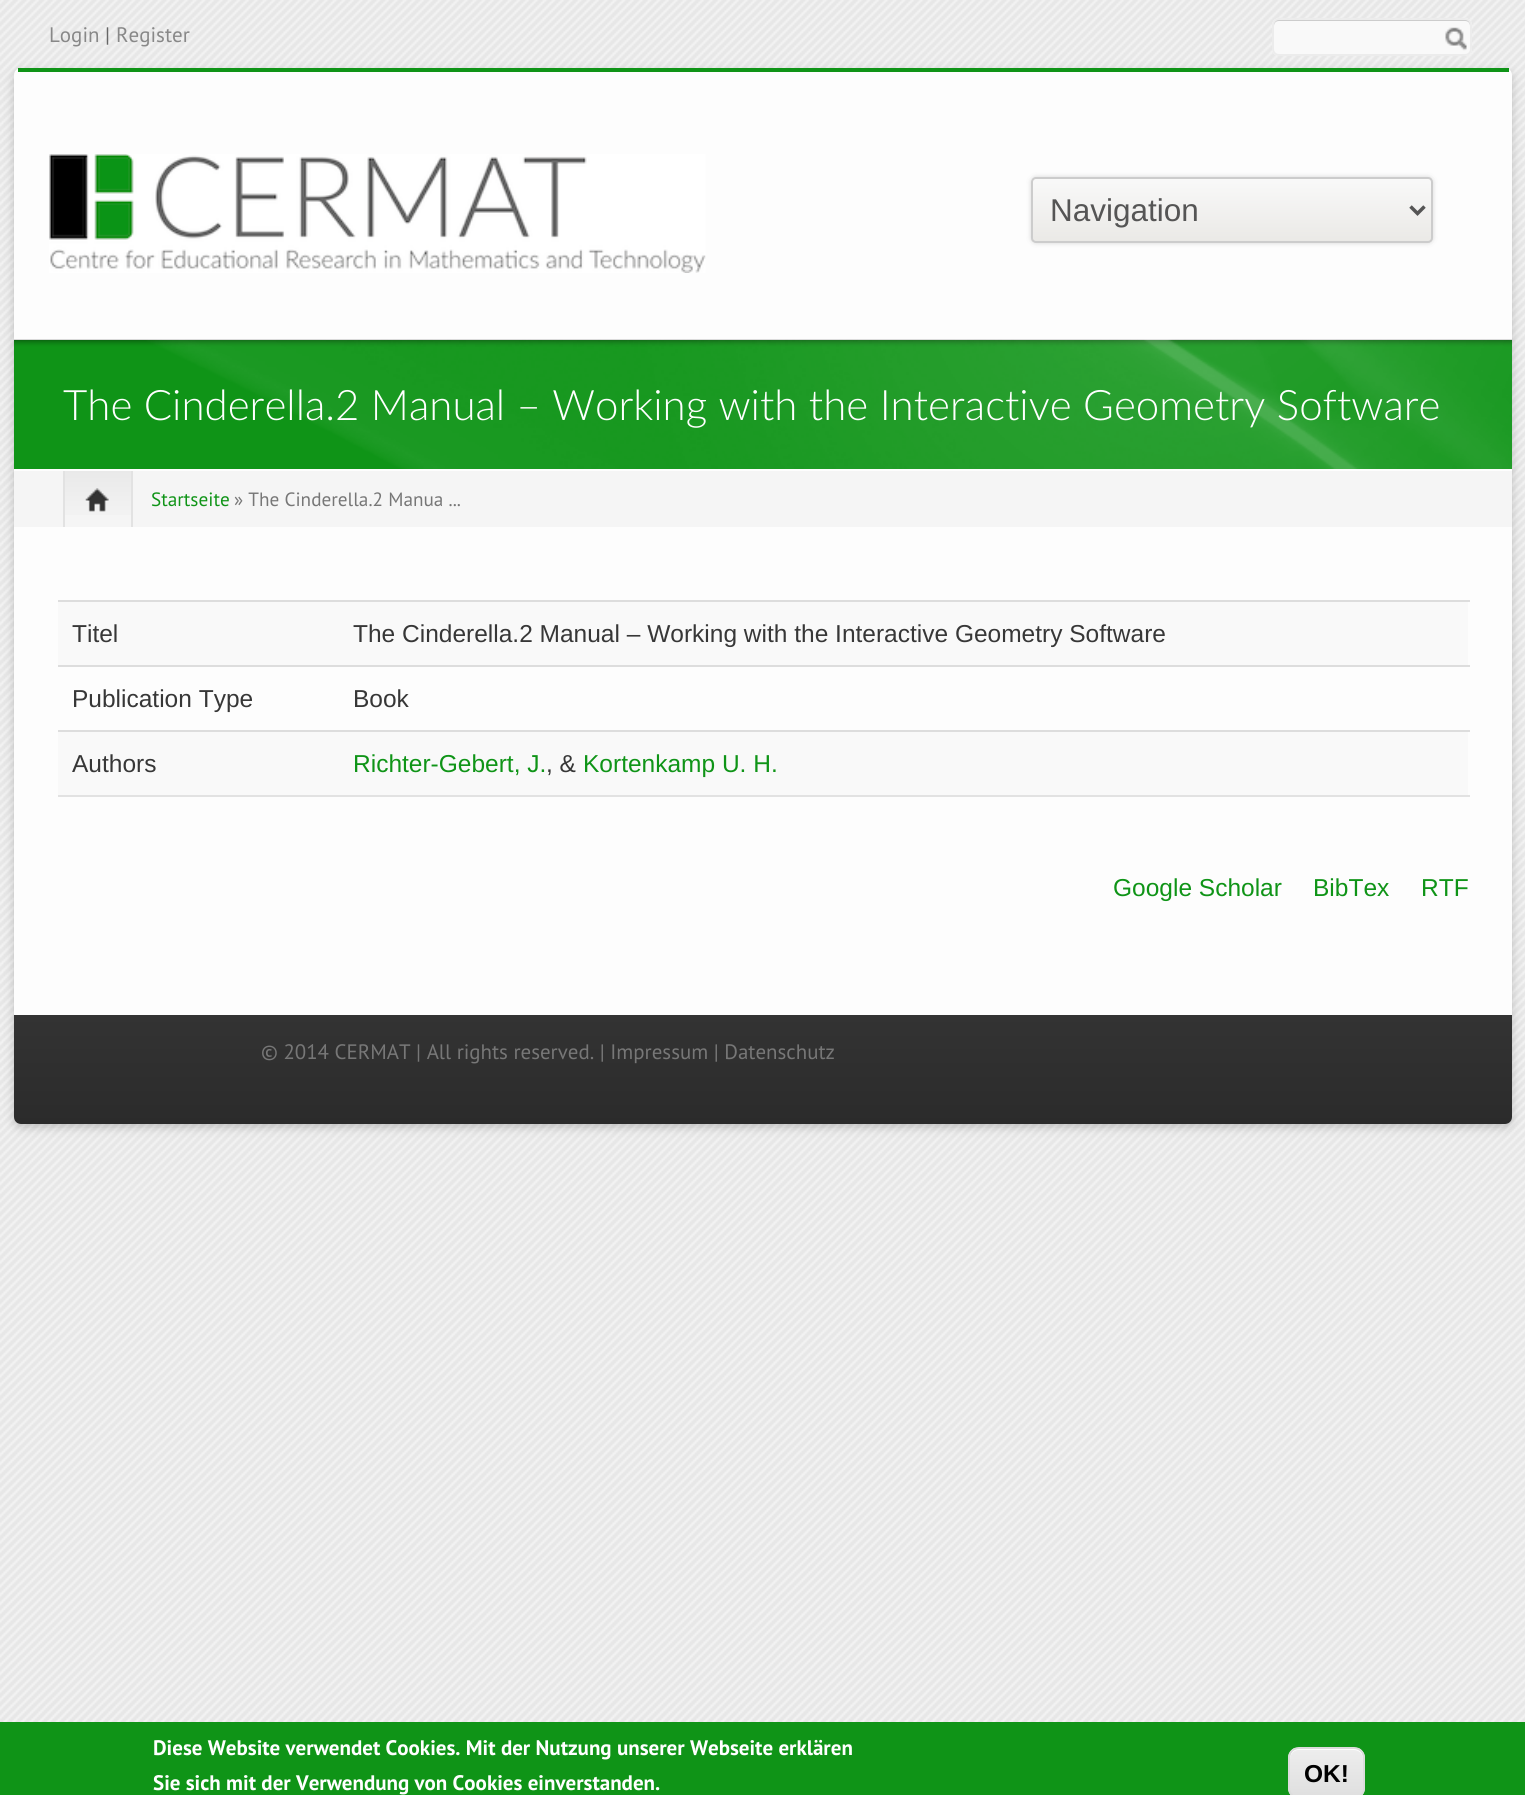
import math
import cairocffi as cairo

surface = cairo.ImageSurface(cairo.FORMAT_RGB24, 1525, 1795)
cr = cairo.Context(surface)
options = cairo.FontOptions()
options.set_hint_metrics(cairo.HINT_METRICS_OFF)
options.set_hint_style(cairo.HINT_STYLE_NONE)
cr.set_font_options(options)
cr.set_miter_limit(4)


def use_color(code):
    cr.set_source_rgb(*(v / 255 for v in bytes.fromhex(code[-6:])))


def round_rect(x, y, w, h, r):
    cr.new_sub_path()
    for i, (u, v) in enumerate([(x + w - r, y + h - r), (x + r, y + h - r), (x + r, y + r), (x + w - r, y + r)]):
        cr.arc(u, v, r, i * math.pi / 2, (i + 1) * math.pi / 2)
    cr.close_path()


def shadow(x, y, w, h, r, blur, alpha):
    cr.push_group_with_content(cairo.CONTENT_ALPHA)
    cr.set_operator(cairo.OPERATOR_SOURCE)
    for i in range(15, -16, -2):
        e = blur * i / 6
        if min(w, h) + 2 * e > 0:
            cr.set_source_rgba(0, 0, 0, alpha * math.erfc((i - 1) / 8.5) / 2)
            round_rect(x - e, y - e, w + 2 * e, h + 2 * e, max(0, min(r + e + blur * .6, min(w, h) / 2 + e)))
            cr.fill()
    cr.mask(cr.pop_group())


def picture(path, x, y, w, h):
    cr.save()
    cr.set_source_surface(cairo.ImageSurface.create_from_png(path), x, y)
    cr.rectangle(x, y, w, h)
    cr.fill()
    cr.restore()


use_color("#ffffff")
cr.paint()
picture("img1.png", 0, 0, 1525, 1722)
cr.select_font_face("PT Sans")
cr.set_font_size(21)
use_color("#888888")
cr.move_to(49, 42)
cr.show_text("Login")
use_color("#666666")
cr.move_to(105, 42)
cr.show_text("|")
use_color("#888888")
cr.move_to(116, 42)
cr.show_text("Register")
use_color("#f9f9f9")
round_rect(1272, 18, 200, 38, 7)
cr.fill()
use_color("#cccccc")
cr.new_path()
cr.move_to(1279, 21)
cr.line_to(1465, 21)
cr.curve_to(1468, 21, 1470, 23, 1470, 26)
cr.line_to(1470, 24)
cr.curve_to(1470, 21, 1468, 19, 1465, 19)
cr.line_to(1279, 19)
cr.curve_to(1276, 19, 1274, 21, 1274, 24)
cr.line_to(1274, 26)
cr.curve_to(1274, 23, 1276, 21, 1279, 21)
cr.close_path()
cr.fill()
round_rect(1273, 19, 198, 36, 6)
use_color("#ececec")
cr.stroke()
picture("img2.png", 1445, 27, 22, 24)
use_color("#323232")
shadow(14, 72, 1498, 1055, 7, 5, 0.25)
use_color("#fdfdfd")
round_rect(14, 68, 1498, 1056, 7)
cr.fill()
use_color("#0f9417")
cr.rectangle(18, 68, 1491, 4)
cr.fill()
picture("img3.png", 49, 154, 657, 119)
use_color("#323232")
shadow(1031, 177, 402, 66, 5, 2.5, 0.2)
cr.save()
round_rect(1031, 177, 402, 66, 5)
cr.clip()
gradient = cairo.LinearGradient(1232, 178, 1232, 242)
gradient.add_color_stop_rgba(0, 0.976, 0.976, 0.976, 1)
gradient.add_color_stop_rgba(1, 0.918, 0.914, 0.902, 1)
cr.set_source(gradient)
cr.rectangle(1031, 179, 402, 63)
cr.fill()
cr.restore()
round_rect(1032, 178, 400, 64, 4)
use_color("#cccccc")
cr.stroke()
cr.new_path()
cr.move_to(1410.5, 206.5)
cr.line_to(1417.5, 213.5)
cr.line_to(1424.5, 206.5)
use_color("#555555")
cr.set_line_width(3.5)
cr.stroke()
cr.select_font_face("Liberation Sans")
cr.set_font_size(31.5)
cr.move_to(1050, 221)
cr.show_text("Navigation")
use_color("#0f9417")
cr.rectangle(14, 340, 1498, 129)
cr.fill()
picture("img4.png", 14, 339, 1498, 130)
cr.select_font_face("Lato Light")
cr.set_font_size(42)
use_color("#ffffff")
cr.move_to(63, 420)
cr.show_text("The Cinderella.2 Manual – Working with the Interactive Geometry Software")
use_color("#f5f5f5")
cr.rectangle(14, 471, 1498, 56)
cr.fill()
gradient = cairo.LinearGradient(98, 471, 98, 527)
gradient.add_color_stop_rgba(0, 0.914, 0.914, 0.914, 1)
gradient.add_color_stop_rgba(1, 0.961, 0.961, 0.961, 1)
cr.set_source(gradient)
cr.rectangle(65, 471, 66, 44)
cr.fill()
use_color("#e2e2e2")
cr.rectangle(131, 471, 2, 56)
cr.fill()
cr.rectangle(63, 471, 2, 56)
cr.fill()
picture("img5.png", 85, 488, 24, 24)
cr.select_font_face("PT Sans")
cr.set_font_size(19.25)
use_color("#0f9417")
cr.move_to(151, 506)
cr.show_text("Startseite")
use_color("#777777")
cr.move_to(234, 506)
cr.show_text("» The Cinderella.2 Manua ...")
use_color("#f9f9f9")
cr.rectangle(58, 602, 1410, 63)
cr.fill()
cr.select_font_face("Liberation Sans")
cr.set_font_size(24.5)
use_color("#373737")
cr.move_to(72, 642)
cr.show_text("Titel")
use_color("#dddddd")
cr.rectangle(58, 600, 1412, 2)
cr.fill()
use_color("#373737")
cr.move_to(353, 642)
cr.show_text("The Cinderella.2 Manual – Working with the Interactive Geometry Software")
cr.move_to(72, 707)
cr.show_text("Publication Type")
use_color("#dddddd")
cr.rectangle(58, 665, 1412, 2)
cr.fill()
use_color("#373737")
cr.move_to(353, 707)
cr.show_text("Book")
use_color("#e2e2e2")
cr.rectangle(58, 795, 1412, 2)
cr.fill()
use_color("#f9f9f9")
cr.rectangle(58, 732, 1410, 63)
cr.fill()
use_color("#373737")
cr.move_to(72, 772)
cr.show_text("Authors")
use_color("#dddddd")
cr.rectangle(58, 730, 1412, 2)
cr.fill()
use_color("#0f9417")
cr.move_to(353, 772)
cr.show_text("Richter-Gebert, J.")
use_color("#373737")
cr.move_to(546, 772)
cr.show_text(", &")
use_color("#0f9417")
cr.move_to(583, 772)
cr.show_text("Kortenkamp U. H.")
cr.move_to(1113, 896)
cr.show_text("Google Scholar")
cr.move_to(1313, 896)
cr.show_text("BibTex")
cr.move_to(1421, 896)
cr.show_text("RTF")
gradient = cairo.LinearGradient(763, 1015, 763, 1124)
gradient.add_color_stop_rgba(0, 0.2, 0.2, 0.2, 1)
gradient.add_color_stop_rgba(1, 0.169, 0.169, 0.169, 1)
cr.set_source(gradient)
cr.new_path()
cr.move_to(14, 1015)
cr.line_to(1512, 1015)
cr.line_to(1512, 1117)
cr.curve_to(1512, 1121, 1509, 1124, 1505, 1124)
cr.line_to(21, 1124)
cr.curve_to(17, 1124, 14, 1121, 14, 1117)
cr.close_path()
cr.fill()
cr.select_font_face("PT Sans")
cr.set_font_size(20.9)
use_color("#777777")
cr.move_to(261, 1059)
cr.show_text("© 2014 CERMAT | All rights reserved. | Impressum | Datenschutz")
use_color("#0f9417")
cr.rectangle(0, 1722, 1525, 73)
cr.fill()
cr.select_font_face("PT Sans", cairo.FONT_SLANT_NORMAL, cairo.FONT_WEIGHT_BOLD)
cr.set_font_size(21)
use_color("#ffffff")
cr.move_to(153, 1755)
cr.show_text("Diese Website verwendet Cookies. Mit der Nutzung unserer Webseite erklären")
cr.move_to(153, 1790)
cr.show_text("Sie sich mit der Verwendung von Cookies einverstanden.")
cr.save()
round_rect(1288, 1747, 77, 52, 11)
cr.clip()
gradient = cairo.LinearGradient(1327, 1748, 1327, 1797)
gradient.add_color_stop_rgba(0.05, 0.929, 0.929, 0.929, 1)
gradient.add_color_stop_rgba(1, 0.875, 0.875, 0.875, 1)
cr.set_source(gradient)
cr.rectangle(1288, 1748, 77, 47)
cr.fill()
cr.restore()
cr.new_path()
cr.move_to(1298, 1750)
cr.line_to(1354, 1750)
cr.curve_to(1359, 1750, 1363, 1754, 1363, 1759)
cr.curve_to(1363, 1747, 1355, 1748, 1345, 1748)
cr.line_to(1308, 1748)
cr.curve_to(1298, 1748, 1290, 1747, 1290, 1759)
cr.curve_to(1290, 1754, 1294, 1750, 1298, 1750)
cr.close_path()
cr.fill()
round_rect(1289, 1748, 75, 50, 10)
use_color("#dcdcdc")
cr.set_line_width(2)
cr.stroke()
cr.select_font_face("Liberation Sans", cairo.FONT_SLANT_NORMAL, cairo.FONT_WEIGHT_BOLD)
cr.set_font_size(24.5)
use_color("#000000")
cr.move_to(1304, 1782)
cr.show_text("OK!")
surface.write_to_png("result.png")
